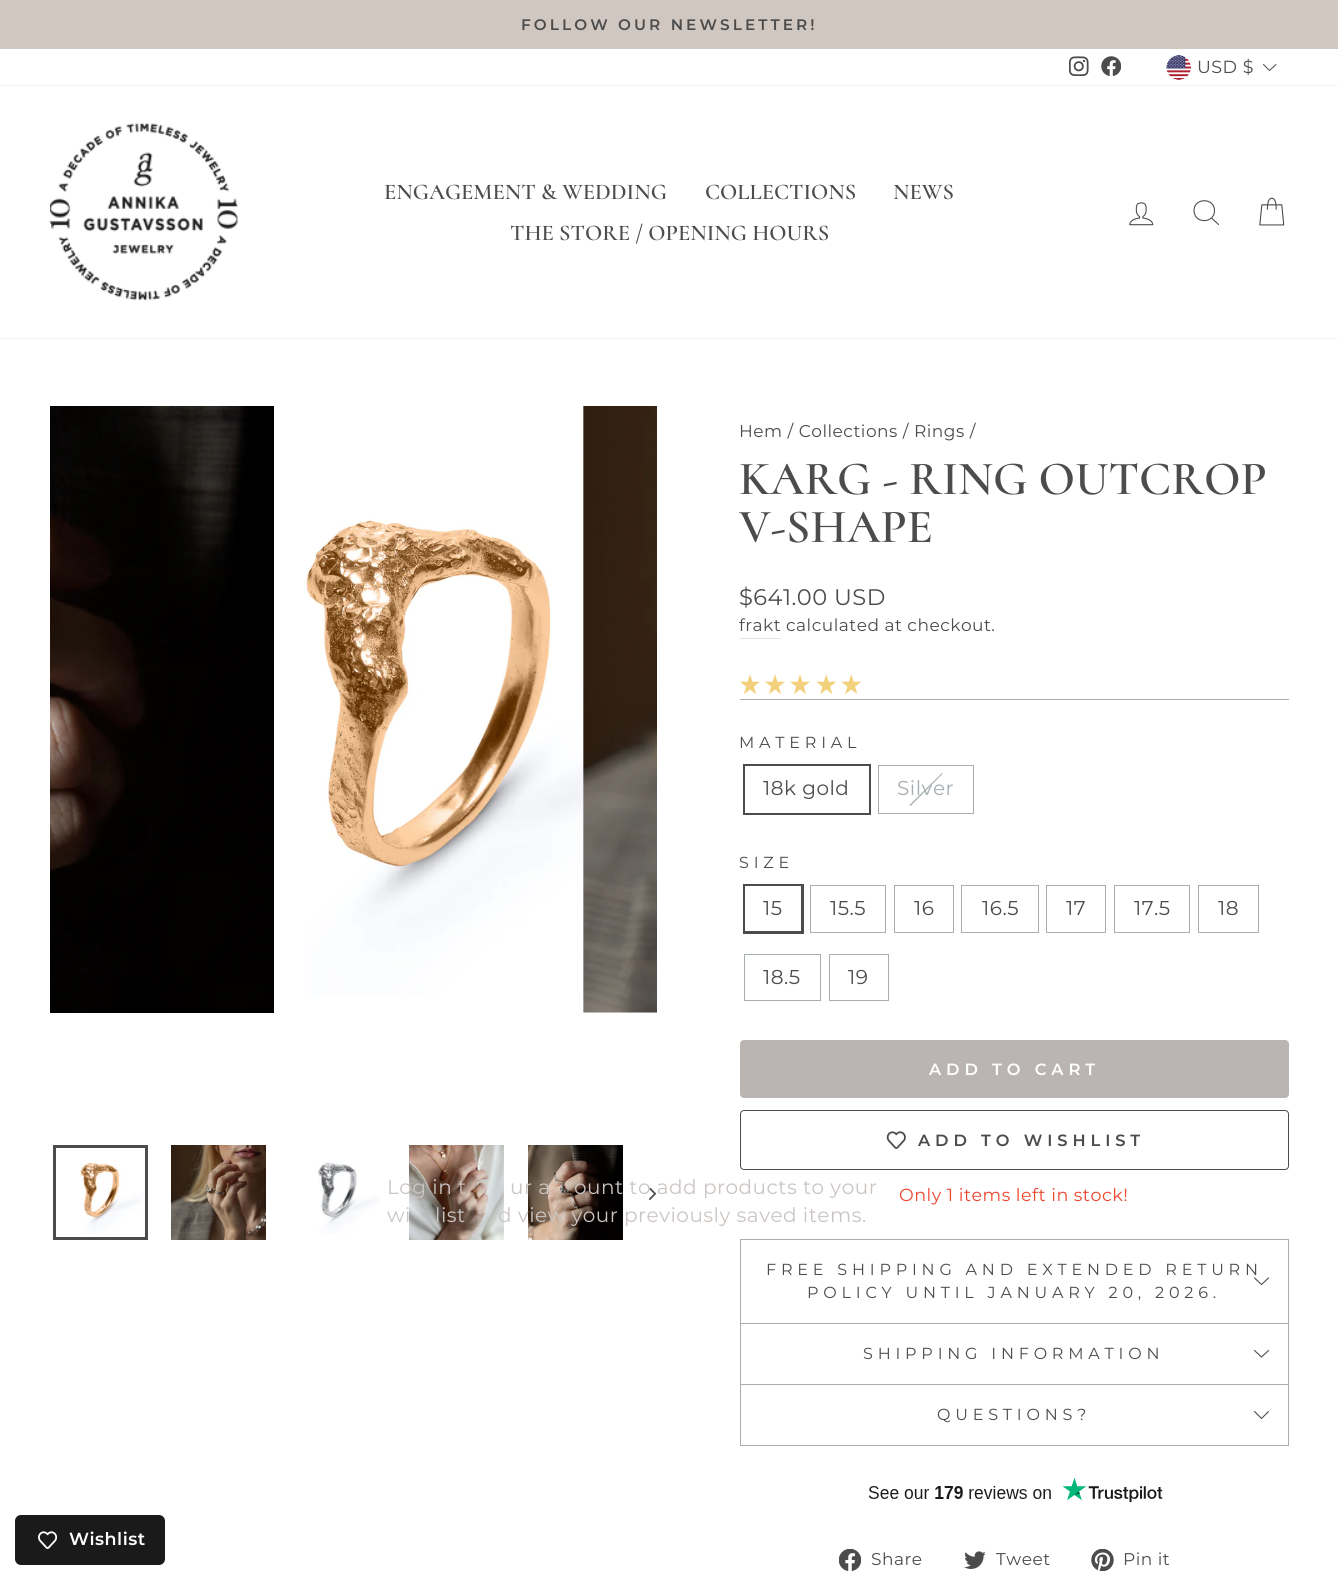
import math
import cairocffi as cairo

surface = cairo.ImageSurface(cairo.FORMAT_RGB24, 1338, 1580)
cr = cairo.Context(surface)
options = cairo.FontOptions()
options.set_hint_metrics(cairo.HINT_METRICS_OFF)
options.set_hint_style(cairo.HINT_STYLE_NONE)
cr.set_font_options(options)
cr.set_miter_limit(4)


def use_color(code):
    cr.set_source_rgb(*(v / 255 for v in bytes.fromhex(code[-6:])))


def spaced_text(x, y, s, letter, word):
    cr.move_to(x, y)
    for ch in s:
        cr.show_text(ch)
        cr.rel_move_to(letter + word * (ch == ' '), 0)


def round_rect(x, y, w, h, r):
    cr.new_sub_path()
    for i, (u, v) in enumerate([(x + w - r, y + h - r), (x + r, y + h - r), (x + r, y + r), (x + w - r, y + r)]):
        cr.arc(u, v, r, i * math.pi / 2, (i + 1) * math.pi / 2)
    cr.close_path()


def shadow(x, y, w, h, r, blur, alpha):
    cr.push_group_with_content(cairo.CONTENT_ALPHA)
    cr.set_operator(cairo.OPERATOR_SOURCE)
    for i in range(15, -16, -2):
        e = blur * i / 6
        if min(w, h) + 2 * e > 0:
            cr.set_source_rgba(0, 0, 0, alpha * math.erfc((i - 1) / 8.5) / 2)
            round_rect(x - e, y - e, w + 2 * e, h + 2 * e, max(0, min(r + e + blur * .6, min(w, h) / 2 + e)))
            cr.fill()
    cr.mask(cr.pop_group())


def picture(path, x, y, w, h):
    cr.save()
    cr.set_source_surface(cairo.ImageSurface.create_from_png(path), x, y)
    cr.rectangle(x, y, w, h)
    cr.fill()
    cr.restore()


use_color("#ffffff")
cr.paint()
use_color("#d1c7c1")
cr.rectangle(0, 0, 1338, 49)
cr.fill()
cr.select_font_face("Montserrat SemiBold")
cr.set_font_size(15.25)
use_color("#4c4c4c")
spaced_text(521, 30, "FOLLOW OUR NEWSLETTER!", 3.1, 0)
picture("img1.png", 1069, 56, 20, 20)
picture("img2.png", 1101, 56, 20, 20)
picture("img3.png", 1166, 55, 26, 25)
cr.select_font_face("Montserrat")
cr.set_font_size(17.5)
spaced_text(1197, 73, "USD $", 0.5, 0)
cr.new_path()
cr.move_to(1263.5, 64.5)
cr.line_to(1269.5, 70.5)
cr.line_to(1276, 64.5)
cr.set_line_width(1)
cr.set_line_cap(cairo.LINE_CAP_ROUND)
cr.set_line_join(cairo.LINE_JOIN_ROUND)
cr.stroke()
use_color("#000000")
shadow(0, 86, 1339, 252, 0, 0.5, 0.2)
use_color("#ffffff")
cr.rectangle(0, 86, 1338, 252)
cr.fill()
picture("img4.png", 50, 123, 188, 178)
cr.select_font_face("Cormorant SemiBold")
cr.set_font_size(22.5)
use_color("#4c4c4c")
cr.move_to(384, 199)
cr.show_text("ENGAGEMENT & WEDDING")
cr.move_to(705, 199)
cr.show_text("COLLECTIONS")
cr.move_to(893, 199)
cr.show_text("NEWS")
cr.move_to(510, 240)
cr.show_text("THE STORE / OPENING HOURS")
picture("img5.png", 1129, 202, 25, 24)
cr.new_path()
cr.move_to(1214.5, 210.5)
cr.curve_to(1214.5, 224, 1194, 224, 1194, 210.5)
cr.curve_to(1194, 197.5, 1214.5, 197.5, 1214.5, 210.5)
cr.close_path()
cr.move_to(1218.5, 224.5)
cr.line_to(1211.5, 218)
cr.set_line_width(1.1)
cr.stroke()
picture("img6.png", 1259, 197, 26, 29)
picture("img7.png", 50, 406, 224, 607)
picture("img8.png", 304, 519, 280, 478)
picture("img9.png", 583, 406, 74, 607)
picture("img10.png", 80, 1159, 65, 75)
cr.rectangle(54.5, 1146.5, 92, 92)
cr.set_line_width(3)
cr.set_line_cap(cairo.LINE_CAP_BUTT)
cr.set_line_join(cairo.LINE_JOIN_MITER)
cr.stroke()
picture("img11.png", 171, 1145, 95, 95)
picture("img12.png", 318, 1162, 61, 72)
picture("img13.png", 409, 1145, 95, 95)
picture("img14.png", 528, 1145, 95, 95)
picture("img15.png", 649, 1188, 7, 12)
cr.select_font_face("Montserrat")
cr.set_font_size(17)
spaced_text(739, 437, "Hem / Collections / Rings /", 0.5, 0)
cr.select_font_face("Cormorant SemiBold")
cr.set_font_size(47.75)
cr.move_to(739, 494)
cr.show_text("KARG - RING OUTCROP")
cr.move_to(739, 542)
cr.show_text("V-SHAPE")
cr.select_font_face("Montserrat")
cr.set_font_size(22.5)
spaced_text(739, 605, "$641.00 USD", 0.5, 0)
use_color("#e4e4e4")
cr.rectangle(740, 638, 41, 1)
cr.fill()
cr.set_font_size(17)
use_color("#4c4c4c")
spaced_text(739, 631, "frakt", 0.5, 0)
spaced_text(786, 631, "calculated at checkout.", 0.5, 0)
picture("img16.png", 740, 674, 20, 20)
picture("img16.png", 765, 674, 20, 20)
picture("img16.png", 790, 674, 20, 20)
picture("img17.png", 816, 674, 20, 21)
picture("img17.png", 841, 674, 20, 21)
use_color("#a6aeb1")
cr.rectangle(740, 699, 549, 1)
cr.fill()
cr.set_font_size(16)
use_color("#4c4c4c")
spaced_text(739, 748, "MATERIAL", 4.8, 0)
cr.rectangle(744.5, 765.5, 125, 48)
cr.stroke()
use_color("#ffffff")
cr.rectangle(745, 766, 124, 47)
cr.fill()
cr.set_font_size(20)
use_color("#4c4c4c")
spaced_text(763, 795, "18k gold", 0.5, 0)
cr.rectangle(878.5, 765.5, 95, 48)
use_color("#a6aeb1")
cr.set_line_width(1)
cr.stroke()
cr.new_path()
cr.move_to(942, 773)
cr.line_to(942.5, 774)
cr.line_to(910.5, 806)
cr.line_to(909.5, 805)
cr.close_path()
cr.fill()
spaced_text(897, 795, "Silver", 0.5, 0)
cr.set_font_size(16)
use_color("#4c4c4c")
spaced_text(739, 868, "SIZE", 4.8, 0)
cr.rectangle(744.5, 885.5, 58, 47)
cr.set_line_width(3)
cr.stroke()
use_color("#ffffff")
cr.rectangle(745, 886, 56, 45)
cr.fill()
cr.set_font_size(20)
use_color("#4c4c4c")
spaced_text(763, 915, "15", 0.5, 0)
cr.rectangle(810.5, 885.5, 75, 47)
use_color("#a6aeb1")
cr.set_line_width(1)
cr.stroke()
use_color("#4c4c4c")
spaced_text(830, 915, "15.5", 0.5, 0)
cr.rectangle(894.5, 885.5, 59, 47)
use_color("#a6aeb1")
cr.stroke()
use_color("#4c4c4c")
spaced_text(914, 915, "16", 0.5, 0)
cr.rectangle(961.5, 885.5, 77, 47)
use_color("#a6aeb1")
cr.stroke()
use_color("#4c4c4c")
spaced_text(982, 915, "16.5", 0.5, 0)
cr.rectangle(1046.5, 885.5, 59, 47)
use_color("#a6aeb1")
cr.stroke()
use_color("#4c4c4c")
spaced_text(1066, 915, "17", 0.5, 0)
cr.rectangle(1114.5, 885.5, 75, 47)
use_color("#a6aeb1")
cr.stroke()
use_color("#4c4c4c")
spaced_text(1134, 915, "17.5", 0.5, 0)
cr.rectangle(1198.5, 885.5, 60, 47)
use_color("#a6aeb1")
cr.stroke()
use_color("#4c4c4c")
spaced_text(1218, 915, "18", 0.5, 0)
cr.rectangle(744.5, 954.5, 76, 46)
use_color("#a6aeb1")
cr.stroke()
use_color("#4c4c4c")
spaced_text(763, 984, "18.5", 0.5, 0)
cr.rectangle(829.5, 954.5, 59, 46)
use_color("#a6aeb1")
cr.stroke()
use_color("#4c4c4c")
spaced_text(848, 984, "19", 0.5, 0)
use_color("#bab5b3")
round_rect(740, 1040, 549, 58, 4)
cr.fill()
cr.select_font_face("Montserrat SemiBold")
cr.set_font_size(16.25)
use_color("#ffffff")
spaced_text(929, 1075, "ADD TO CART", 4.9, 0)
round_rect(740.5, 1110.5, 548, 59, 3.5)
use_color("#4c4c4c")
cr.stroke()
picture("img18.png", 886, 1131, 20, 18)
spaced_text(918, 1146, "ADD TO WISHLIST", 4.9, 0)
cr.select_font_face("Montserrat")
cr.set_font_size(17.5)
use_color("#ee442e")
spaced_text(899, 1201, "Only 1 items left in stock!", 0.5, 0)
use_color("#a6aeb1")
cr.rectangle(740, 1323, 549, 1)
cr.fill()
cr.rectangle(740, 1239, 549, 1)
cr.fill()
cr.rectangle(1288, 1239, 1, 84)
cr.fill()
cr.rectangle(740, 1239, 1, 84)
cr.fill()
cr.set_font_size(16)
use_color("#4c4c4c")
spaced_text(766, 1275, "FREE SHIPPING AND EXTENDED RETURN", 4.8, 0)
cr.new_path()
cr.move_to(1254.5, 1278)
cr.line_to(1261.5, 1284.5)
cr.line_to(1268.5, 1278)
cr.set_line_width(1.1)
cr.set_line_cap(cairo.LINE_CAP_ROUND)
cr.set_line_join(cairo.LINE_JOIN_ROUND)
cr.stroke()
spaced_text(807, 1298, "POLICY UNTIL JANUARY 20, 2026.", 4.8, 0)
use_color("#a6aeb1")
cr.rectangle(740, 1384, 549, 1)
cr.fill()
cr.rectangle(1288, 1324, 1, 60)
cr.fill()
cr.rectangle(740, 1324, 1, 60)
cr.fill()
use_color("#4c4c4c")
spaced_text(863, 1359, "SHIPPING INFORMATION", 4.8, 0)
cr.new_path()
cr.move_to(1254.5, 1350.5)
cr.line_to(1261.5, 1357)
cr.line_to(1268.5, 1350.5)
cr.stroke()
use_color("#a6aeb1")
cr.rectangle(740, 1445, 549, 1)
cr.fill()
cr.rectangle(1288, 1385, 1, 60)
cr.fill()
cr.rectangle(740, 1385, 1, 60)
cr.fill()
use_color("#4c4c4c")
spaced_text(937, 1420, "QUESTIONS?", 4.8, 0)
cr.new_path()
cr.move_to(1254.5, 1411.5)
cr.line_to(1261.5, 1418.5)
cr.line_to(1268.5, 1411.5)
cr.stroke()
picture("img19.png", 868, 1478, 295, 24)
picture("img20.png", 839, 1549, 22, 22)
cr.set_font_size(17)
spaced_text(871, 1565, "Share", 0.5, 0)
picture("img21.png", 964, 1551, 22, 18)
spaced_text(996, 1565, "Tweet", 0.5, 0)
picture("img22.png", 1091, 1549, 23, 22)
spaced_text(1123, 1565, "Pin it", 0.5, 0)
cr.set_font_size(20)
use_color("#cbc5c2")
spaced_text(387, 1194, "Log in t", 0.5, 0)
spaced_text(510, 1194, "ur a", 0.5, 0)
spaced_text(574, 1194, "ount to add products to your", 0.5, 0)
spaced_text(387, 1222, "wi", 0.5, 0)
spaced_text(435, 1222, "list", 0.5, 0)
spaced_text(498, 1222, "d view your previously saved items.", 0.5, 0)
use_color("#1a1a1a")
round_rect(15, 1515, 150, 50, 6)
cr.fill()
picture("img23.png", 38, 1531, 20, 18)
cr.select_font_face("Montserrat SemiBold")
cr.set_font_size(17.5)
use_color("#ffffff")
spaced_text(69, 1545, "Wishlist", 0.5, 0)
surface.write_to_png("result.png")
